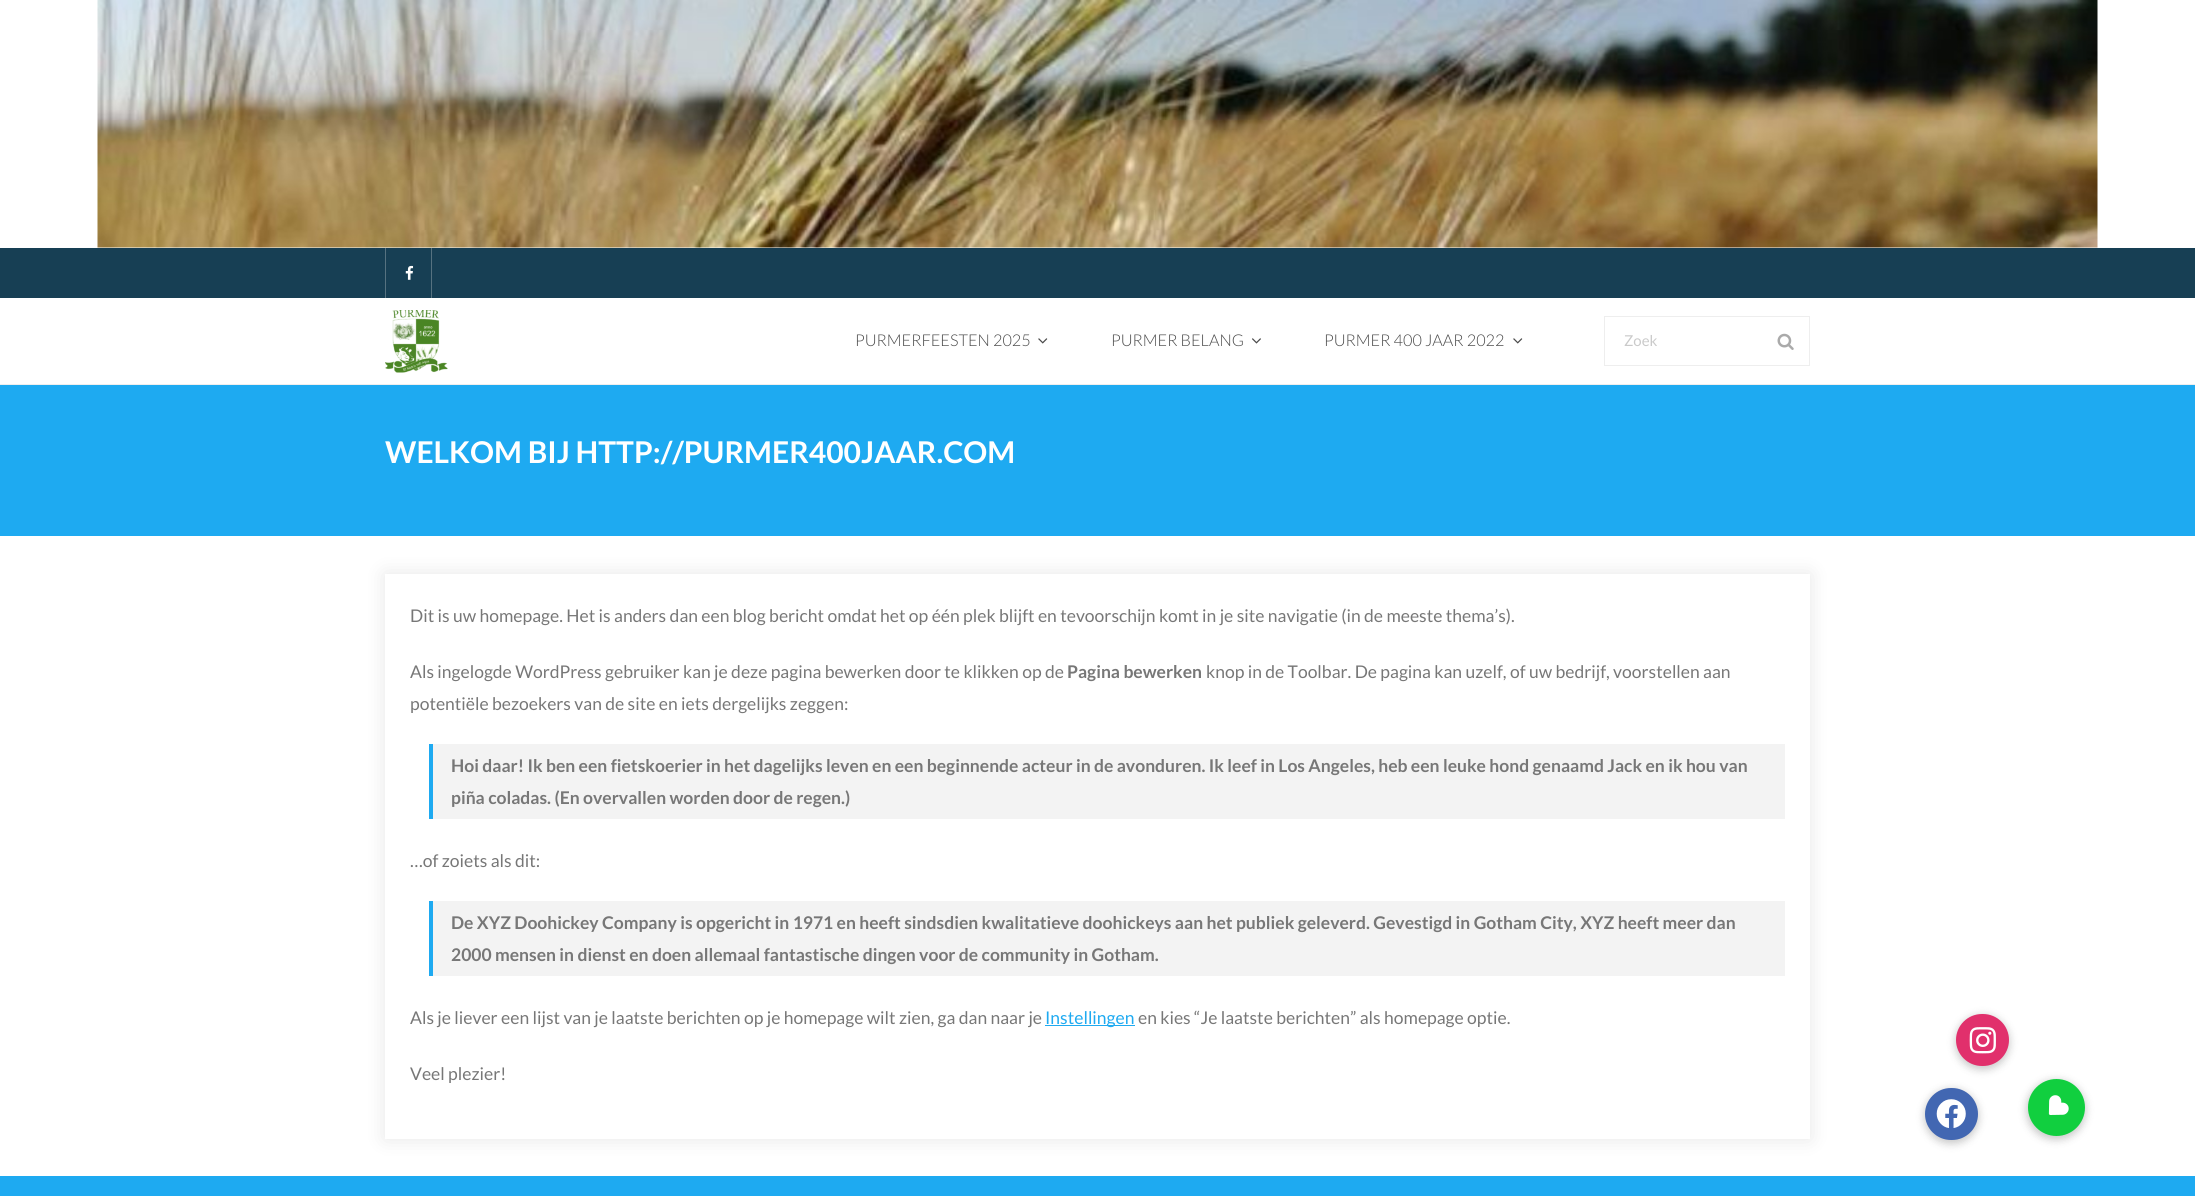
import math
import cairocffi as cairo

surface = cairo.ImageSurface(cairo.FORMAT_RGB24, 2195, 1196)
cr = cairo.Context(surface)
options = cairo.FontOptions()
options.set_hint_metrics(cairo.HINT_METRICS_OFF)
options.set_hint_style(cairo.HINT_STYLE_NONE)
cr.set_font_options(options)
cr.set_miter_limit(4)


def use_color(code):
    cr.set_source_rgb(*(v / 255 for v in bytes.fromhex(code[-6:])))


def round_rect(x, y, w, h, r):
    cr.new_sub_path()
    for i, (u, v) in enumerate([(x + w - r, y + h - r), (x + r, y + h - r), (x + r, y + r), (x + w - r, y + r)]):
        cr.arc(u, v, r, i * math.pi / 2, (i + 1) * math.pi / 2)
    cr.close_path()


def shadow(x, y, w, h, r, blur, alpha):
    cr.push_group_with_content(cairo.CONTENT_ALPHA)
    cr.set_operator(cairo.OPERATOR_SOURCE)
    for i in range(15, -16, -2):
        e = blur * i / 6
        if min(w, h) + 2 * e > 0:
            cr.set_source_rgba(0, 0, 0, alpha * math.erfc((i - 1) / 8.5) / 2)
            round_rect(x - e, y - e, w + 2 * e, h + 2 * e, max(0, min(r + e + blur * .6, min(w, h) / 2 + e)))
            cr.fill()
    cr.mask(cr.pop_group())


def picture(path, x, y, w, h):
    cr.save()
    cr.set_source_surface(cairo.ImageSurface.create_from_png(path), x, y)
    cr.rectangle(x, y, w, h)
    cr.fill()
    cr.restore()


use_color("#ffffff")
cr.paint()
picture("img1.png", 97, 0, 2001, 248)
use_color("#173f54")
cr.rectangle(0, 248, 2195, 50)
cr.fill()
use_color("#567280")
cr.rectangle(431, 248, 1, 50)
cr.fill()
cr.rectangle(385, 248, 1, 50)
cr.fill()
picture("img2.png", 405, 265, 9, 15)
use_color("#eeeeee")
cr.rectangle(0, 384, 2195, 1)
cr.fill()
picture("img3.png", 385, 310, 63, 63)
cr.select_font_face("Lato Light")
cr.set_font_size(16.25)
use_color("#4a4a4a")
cr.move_to(855, 346)
cr.show_text("PURMERFEESTEN 2025")
picture("img4.png", 1038, 338, 10, 6)
cr.move_to(1111, 346)
cr.show_text("PURMER BELANG")
picture("img5.png", 1252, 338, 9, 6)
cr.move_to(1324, 346)
cr.show_text("PURMER 400 JAAR 2022")
picture("img4.png", 1513, 338, 10, 6)
cr.rectangle(1604.5, 316.5, 205, 49)
use_color("#eeeeee")
cr.set_line_width(1)
cr.stroke()
cr.select_font_face("Lato")
cr.set_font_size(15)
use_color("#cacaca")
cr.move_to(1624, 346)
cr.show_text("Zoek")
picture("img6.png", 1777, 333, 17, 17)
use_color("#1eaaf1")
cr.rectangle(0, 385, 2195, 151)
cr.fill()
cr.select_font_face("Lato", cairo.FONT_SLANT_NORMAL, cairo.FONT_WEIGHT_BOLD)
cr.set_font_size(30)
use_color("#ffffff")
cr.move_to(385, 463)
cr.show_text("WELKOM BIJ HTTP://PURMER400JAAR.COM")
use_color("#000000")
shadow(385, 574, 1425, 565, 0, 9.5, 0.1)
use_color("#ffffff")
cr.rectangle(385, 574, 1425, 565)
cr.fill()
cr.select_font_face("Lato")
cr.set_font_size(17.5)
use_color("#777777")
cr.move_to(410, 622)
cr.show_text("Dit is uw homepage. Het is anders dan een blog bericht omdat het op één plek blijft en tevoorschijn komt in je site navigatie (in de meeste thema’s).")
cr.move_to(410, 678)
cr.show_text("Als ingelogde WordPress gebruiker kan je deze pagina bewerken door te klikken op de")
cr.select_font_face("Lato", cairo.FONT_SLANT_NORMAL, cairo.FONT_WEIGHT_BOLD)
cr.move_to(1067, 678)
cr.show_text("Pagina bewerken")
cr.select_font_face("Lato")
cr.move_to(1206, 678)
cr.show_text("knop in de Toolbar. De pagina kan uzelf, of uw bedrijf, voorstellen aan")
cr.move_to(410, 710)
cr.show_text("potentiële bezoekers van de site en iets dergelijks zeggen:")
use_color("#f3f3f3")
cr.rectangle(433, 744, 1352, 75)
cr.fill()
use_color("#1eaaf1")
cr.rectangle(429, 744, 4, 75)
cr.fill()
cr.select_font_face("Lato", cairo.FONT_SLANT_NORMAL, cairo.FONT_WEIGHT_BOLD)
use_color("#777777")
cr.move_to(451, 772)
cr.show_text("Hoi daar! Ik ben een fietskoerier in het dagelijks leven en een beginnende acteur in de avonduren. Ik leef in Los Angeles, heb een leuke hond genaamd Jack en ik hou van")
cr.move_to(451, 804)
cr.show_text("piña coladas. (En overvallen worden door de regen.)")
cr.select_font_face("Lato")
cr.move_to(410, 867)
cr.show_text("…of zoiets als dit:")
use_color("#f3f3f3")
cr.rectangle(433, 901, 1352, 75)
cr.fill()
use_color("#1eaaf1")
cr.rectangle(429, 901, 4, 75)
cr.fill()
cr.select_font_face("Lato", cairo.FONT_SLANT_NORMAL, cairo.FONT_WEIGHT_BOLD)
use_color("#777777")
cr.move_to(451, 929)
cr.show_text("De XYZ Doohickey Company is opgericht in 1971 en heeft sindsdien kwalitatieve doohickeys aan het publiek geleverd. Gevestigd in Gotham City, XYZ heeft meer dan")
cr.move_to(451, 961)
cr.show_text("2000 mensen in dienst en doen allemaal fantastische dingen voor de community in Gotham.")
cr.select_font_face("Lato")
cr.move_to(410, 1024)
cr.show_text("Als je liever een lijst van je laatste berichten op je homepage wilt zien, ga dan naar je")
use_color("#1eaaf1")
cr.rectangle(1045, 1025, 90, 1)
cr.fill()
cr.move_to(1045, 1024)
cr.show_text("Instellingen")
use_color("#777777")
cr.move_to(1138, 1024)
cr.show_text("en kies “Je laatste berichten” als homepage optie.")
cr.move_to(410, 1080)
cr.show_text("Veel plezier!")
use_color("#1eaaf1")
cr.rectangle(0, 1176, 2195, 20)
cr.fill()
use_color("#000000")
shadow(1955, 1015, 55, 55, 27.5, 4, 0.2)
use_color("#e1306c")
round_rect(1956, 1014, 53, 52, 26)
cr.fill()
picture("img7.png", 1969, 1027, 27, 27)
use_color("#000000")
shadow(1924, 1089, 55, 55, 27.5, 4, 0.2)
use_color("#4267b2")
round_rect(1925, 1088, 53, 52, 26)
cr.fill()
picture("img8.png", 1936, 1099, 30, 29)
use_color("#000000")
shadow(2026, 1080, 60, 60, 30, 4, 0.2)
use_color("#11cf3f")
cr.arc(2056.5, 1107.5, 28.5, 0, 2 * math.pi)
cr.fill()
picture("img9.png", 2048, 1095, 21, 20)
surface.write_to_png("result.png")
